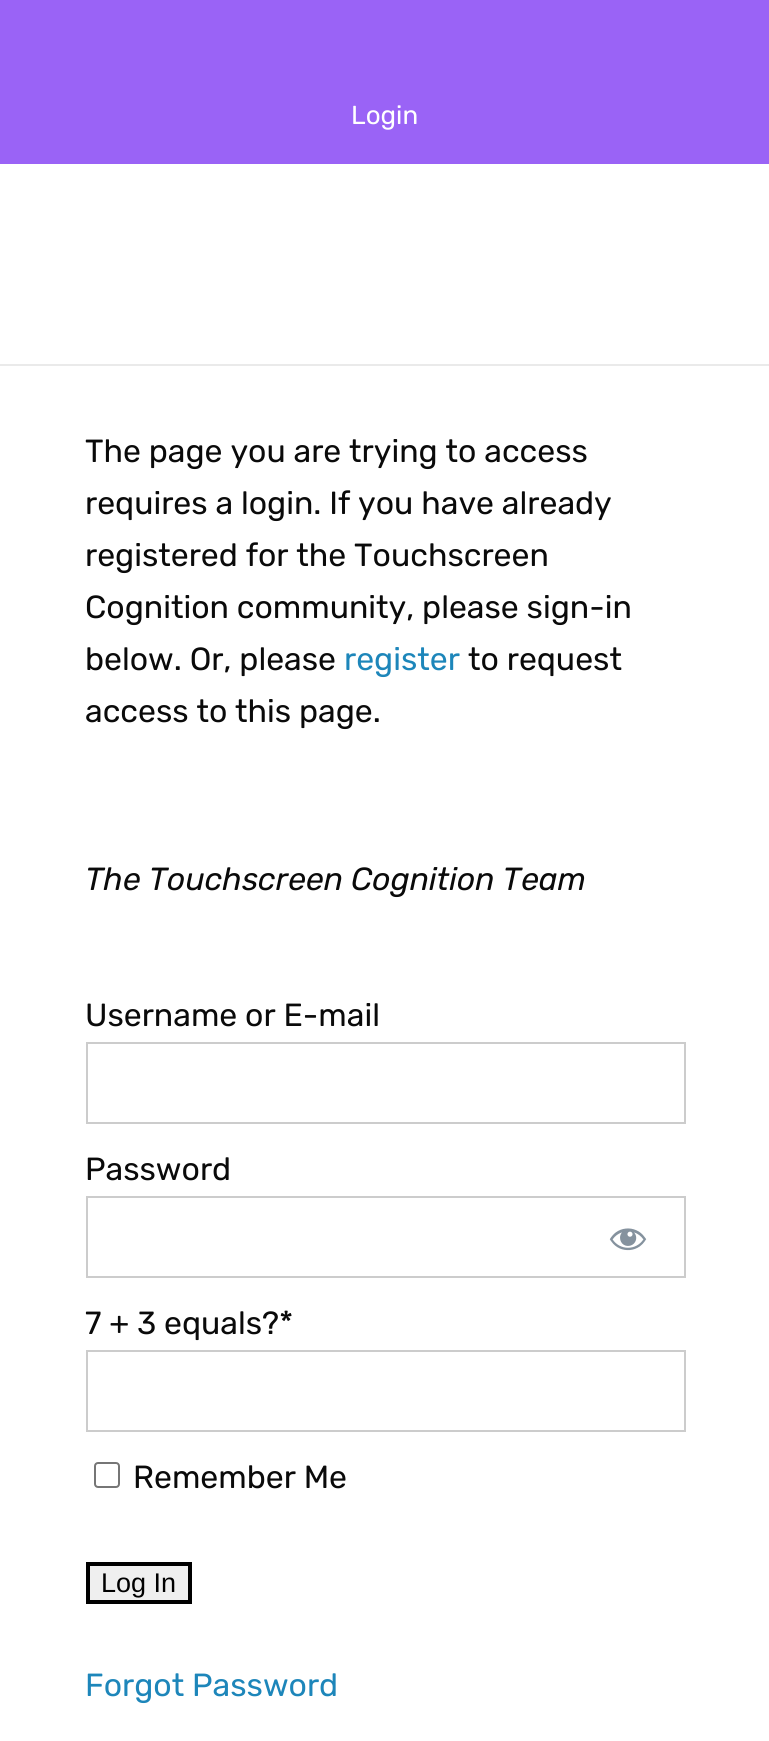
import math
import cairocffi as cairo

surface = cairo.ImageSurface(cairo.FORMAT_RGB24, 769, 1741)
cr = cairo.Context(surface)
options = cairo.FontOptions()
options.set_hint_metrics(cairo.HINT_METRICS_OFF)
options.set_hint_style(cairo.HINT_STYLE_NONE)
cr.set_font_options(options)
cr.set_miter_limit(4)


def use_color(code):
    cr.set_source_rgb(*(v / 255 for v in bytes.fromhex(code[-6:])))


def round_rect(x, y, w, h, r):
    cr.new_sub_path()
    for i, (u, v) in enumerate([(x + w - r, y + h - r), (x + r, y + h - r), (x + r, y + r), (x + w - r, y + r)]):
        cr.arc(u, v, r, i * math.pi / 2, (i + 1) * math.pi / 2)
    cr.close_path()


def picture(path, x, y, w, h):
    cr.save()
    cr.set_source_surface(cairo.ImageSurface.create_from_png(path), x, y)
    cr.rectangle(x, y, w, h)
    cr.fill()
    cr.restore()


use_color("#ffffff")
cr.paint()
use_color("#9a63f6")
cr.rectangle(0, 0, 769, 164)
cr.fill()
cr.select_font_face("Rubik")
cr.set_font_size(26)
use_color("#ffffff")
cr.move_to(351, 124)
cr.show_text("Login")
use_color("#eaeaea")
cr.rectangle(0, 364, 769, 2)
cr.fill()
cr.set_font_size(32)
use_color("#0a0a0a")
cr.move_to(85, 462)
cr.show_text("The page you are trying to access")
cr.move_to(85, 514)
cr.show_text("requires a login. If you have already")
cr.move_to(85, 566)
cr.show_text("registered for the Touchscreen")
cr.move_to(85, 618)
cr.show_text("Cognition community, please sign-in")
cr.move_to(85, 670)
cr.show_text("below. Or, please")
use_color("#1d86ba")
cr.move_to(344, 670)
cr.show_text("register")
use_color("#0a0a0a")
cr.move_to(468, 670)
cr.show_text("to request")
cr.move_to(85, 722)
cr.show_text("access to this page.")
cr.select_font_face("Rubik", cairo.FONT_SLANT_ITALIC)
cr.move_to(85, 890)
cr.show_text("The Touchscreen Cognition Team")
cr.select_font_face("Rubik")
cr.move_to(85, 1026)
cr.show_text("Username or E-mail")
cr.rectangle(87, 1043, 598, 80)
use_color("#cccccc")
cr.stroke()
use_color("#0a0a0a")
cr.move_to(85, 1180)
cr.show_text("Password")
cr.rectangle(87, 1197, 598, 80)
use_color("#cccccc")
cr.stroke()
picture("img1.png", 609, 1228, 38, 23)
use_color("#0a0a0a")
cr.move_to(85, 1334)
cr.show_text("7 + 3 equals?*")
cr.rectangle(87, 1351, 598, 80)
use_color("#cccccc")
cr.stroke()
round_rect(95, 1463, 24, 24, 3)
use_color("#767676")
cr.stroke()
use_color("#0a0a0a")
cr.move_to(133, 1488)
cr.show_text("Remember Me")
use_color("#efefef")
cr.rectangle(88, 1564, 102, 38)
cr.fill_preserve()
use_color("#000000")
cr.set_line_width(4)
cr.stroke()
cr.select_font_face("Liberation Sans")
cr.set_font_size(27)
cr.move_to(101, 1592)
cr.show_text("Log In")
cr.select_font_face("Rubik")
cr.set_font_size(32)
use_color("#1d86ba")
cr.move_to(85, 1696)
cr.show_text("Forgot Password")
surface.write_to_png("result.png")
